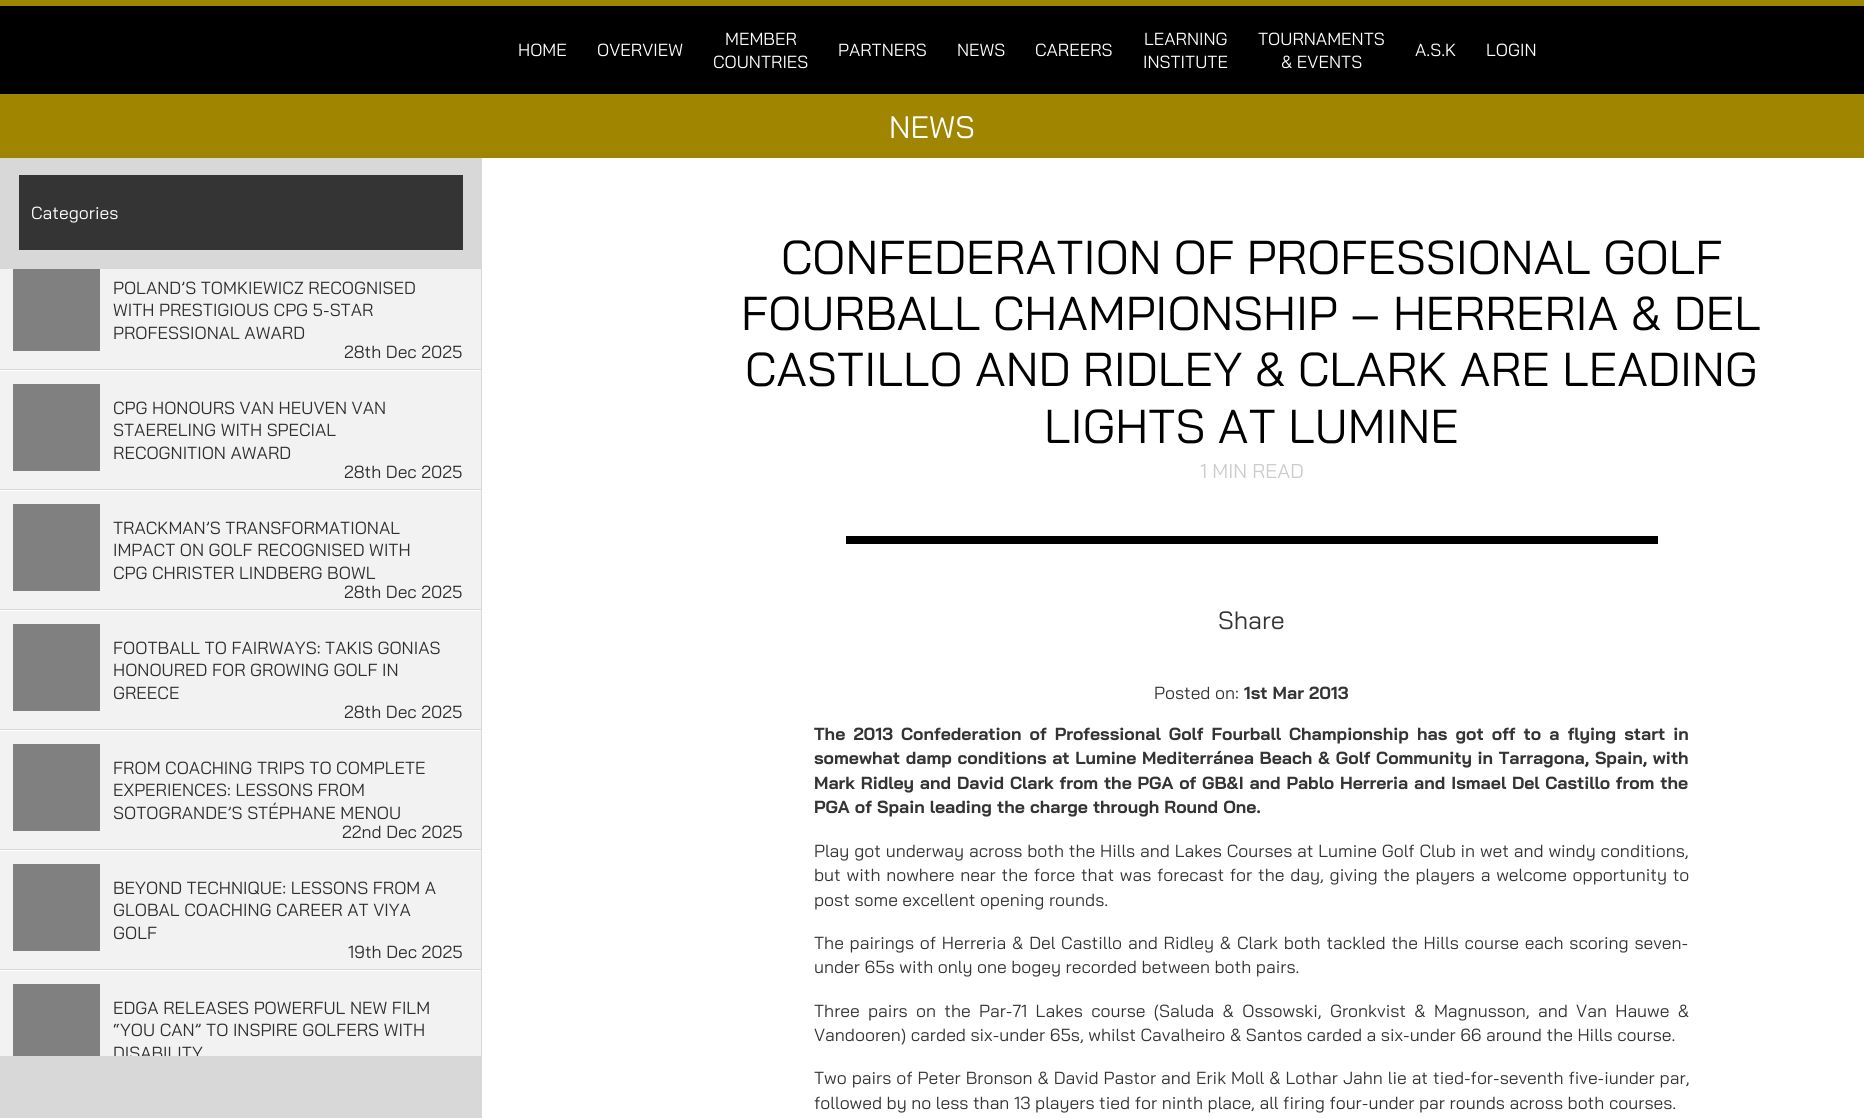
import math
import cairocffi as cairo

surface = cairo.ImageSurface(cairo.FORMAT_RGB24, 1864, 1118)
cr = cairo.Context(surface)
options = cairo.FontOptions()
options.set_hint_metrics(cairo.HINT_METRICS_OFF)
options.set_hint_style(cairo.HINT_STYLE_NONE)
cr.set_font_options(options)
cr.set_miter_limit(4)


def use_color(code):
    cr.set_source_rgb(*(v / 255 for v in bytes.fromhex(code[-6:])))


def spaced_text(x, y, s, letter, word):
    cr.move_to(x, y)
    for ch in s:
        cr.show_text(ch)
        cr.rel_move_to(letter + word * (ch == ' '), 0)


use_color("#ffffff")
cr.paint()
use_color("#000000")
cr.rectangle(0, 6, 1864, 88)
cr.fill()
use_color("#9f8500")
cr.rectangle(0, 0, 1864, 6)
cr.fill()
cr.select_font_face("Bai Jamjuree")
cr.set_font_size(17.5)
use_color("#ffffff")
cr.move_to(518, 56)
cr.show_text("HOME")
cr.move_to(597, 56)
cr.show_text("OVERVIEW")
cr.move_to(725, 45)
cr.show_text("MEMBER")
cr.move_to(713, 68)
cr.show_text("COUNTRIES")
cr.move_to(838, 56)
cr.show_text("PARTNERS")
cr.move_to(957, 56)
cr.show_text("NEWS")
cr.move_to(1035, 56)
cr.show_text("CAREERS")
cr.move_to(1144, 45)
cr.show_text("LEARNING")
cr.move_to(1143, 68)
cr.show_text("INSTITUTE")
cr.move_to(1258, 45)
cr.show_text("TOURNAMENTS")
cr.move_to(1281, 68)
cr.show_text("& EVENTS")
cr.move_to(1415, 56)
cr.show_text("A.S.K")
cr.move_to(1486, 56)
cr.show_text("LOGIN")
use_color("#d8d8d8")
cr.rectangle(481, 156, 1, 962)
cr.fill()
use_color("#9f8500")
cr.rectangle(0, 94, 1864, 64)
cr.fill()
cr.set_font_size(31)
use_color("#ffffff")
cr.move_to(889, 138)
cr.show_text("NEWS")
use_color("#d8d8d8")
cr.rectangle(0, 158, 481, 111)
cr.fill()
use_color("#343434")
cr.rectangle(19, 175, 444, 75)
cr.fill()
cr.set_font_size(17.5)
use_color("#ffffff")
cr.move_to(31, 219)
cr.show_text("Categories")
use_color("#d8d8d8")
cr.rectangle(0, 369, 481, 1)
cr.fill()
use_color("#f2f2f2")
cr.rectangle(0, 269, 481, 100)
cr.fill()
use_color("#808080")
cr.rectangle(13, 269, 87, 82)
cr.fill()
use_color("#2e2e2e")
cr.move_to(113, 294)
cr.show_text("POLAND’S TOMKIEWICZ RECOGNISED")
cr.move_to(113, 316)
cr.show_text("WITH PRESTIGIOUS CPG 5-STAR")
cr.move_to(113, 339)
cr.show_text("PROFESSIONAL AWARD")
cr.move_to(344, 358)
cr.show_text("28th Dec 2025")
use_color("#d8d8d8")
cr.rectangle(0, 489, 481, 1)
cr.fill()
use_color("#f2f2f2")
cr.rectangle(0, 371, 481, 118)
cr.fill()
use_color("#808080")
cr.rectangle(13, 384, 87, 87)
cr.fill()
use_color("#2e2e2e")
cr.move_to(113, 414)
cr.show_text("CPG HONOURS VAN HEUVEN VAN")
cr.move_to(113, 436)
cr.show_text("STAERELING WITH SPECIAL")
cr.move_to(113, 459)
cr.show_text("RECOGNITION AWARD")
cr.move_to(344, 478)
cr.show_text("28th Dec 2025")
use_color("#d8d8d8")
cr.rectangle(0, 609, 481, 1)
cr.fill()
use_color("#f2f2f2")
cr.rectangle(0, 491, 481, 118)
cr.fill()
use_color("#808080")
cr.rectangle(13, 504, 87, 87)
cr.fill()
use_color("#2e2e2e")
cr.move_to(113, 534)
cr.show_text("TRACKMAN’S TRANSFORMATIONAL")
cr.move_to(113, 556)
cr.show_text("IMPACT ON GOLF RECOGNISED WITH")
cr.move_to(113, 579)
cr.show_text("CPG CHRISTER LINDBERG BOWL")
cr.move_to(344, 598)
cr.show_text("28th Dec 2025")
use_color("#d8d8d8")
cr.rectangle(0, 729, 481, 1)
cr.fill()
use_color("#f2f2f2")
cr.rectangle(0, 611, 481, 118)
cr.fill()
use_color("#808080")
cr.rectangle(13, 624, 87, 87)
cr.fill()
use_color("#2e2e2e")
cr.move_to(113, 654)
cr.show_text("FOOTBALL TO FAIRWAYS: TAKIS GONIAS")
cr.move_to(113, 676)
cr.show_text("HONOURED FOR GROWING GOLF IN")
cr.move_to(113, 699)
cr.show_text("GREECE")
cr.move_to(344, 718)
cr.show_text("28th Dec 2025")
use_color("#d8d8d8")
cr.rectangle(0, 849, 481, 1)
cr.fill()
use_color("#f2f2f2")
cr.rectangle(0, 731, 481, 118)
cr.fill()
use_color("#808080")
cr.rectangle(13, 744, 87, 87)
cr.fill()
use_color("#2e2e2e")
cr.move_to(113, 774)
cr.show_text("FROM COACHING TRIPS TO COMPLETE")
cr.move_to(113, 796)
cr.show_text("EXPERIENCES: LESSONS FROM")
cr.move_to(113, 819)
cr.show_text("SOTOGRANDE’S STÉPHANE MENOU")
cr.move_to(342, 838)
cr.show_text("22nd Dec 2025")
use_color("#d8d8d8")
cr.rectangle(0, 969, 481, 1)
cr.fill()
use_color("#f2f2f2")
cr.rectangle(0, 851, 481, 118)
cr.fill()
use_color("#808080")
cr.rectangle(13, 864, 87, 87)
cr.fill()
use_color("#2e2e2e")
cr.move_to(113, 894)
cr.show_text("BEYOND TECHNIQUE: LESSONS FROM A")
cr.move_to(113, 916)
cr.show_text("GLOBAL COACHING CAREER AT VIYA")
cr.move_to(113, 939)
cr.show_text("GOLF")
cr.move_to(348, 958)
cr.show_text("19th Dec 2025")
use_color("#f2f2f2")
cr.rectangle(0, 971, 481, 85)
cr.fill()
use_color("#808080")
cr.rectangle(13, 984, 87, 72)
cr.fill()
use_color("#2e2e2e")
cr.move_to(113, 1014)
cr.show_text("EDGA RELEASES POWERFUL NEW FILM")
cr.move_to(113, 1036)
cr.show_text("“YOU CAN” TO INSPIRE GOLFERS WITH")
cr.move_to(113, 1059)
cr.show_text("DISABILITY")
use_color("#d8d8d8")
cr.rectangle(0, 1056, 481, 62)
cr.fill()
cr.set_font_size(47.5)
use_color("#000000")
cr.move_to(781, 274)
cr.show_text("CONFEDERATION OF PROFESSIONAL GOLF")
cr.move_to(741, 330)
cr.show_text("FOURBALL CHAMPIONSHIP – HERRERIA & DEL")
cr.move_to(745, 386)
cr.show_text("CASTILLO AND RIDLEY & CLARK ARE LEADING")
cr.move_to(1044, 443)
cr.show_text("LIGHTS AT LUMINE")
cr.set_font_size(20)
use_color("#cccccc")
cr.move_to(1200, 478)
cr.show_text("1 MIN READ")
use_color("#000000")
cr.rectangle(846, 536, 812, 8)
cr.fill()
cr.set_font_size(25)
use_color("#343434")
cr.move_to(1218, 629)
cr.show_text("Share")
cr.set_font_size(17.5)
cr.move_to(1154, 699)
cr.show_text("Posted on:")
cr.select_font_face("Bai Jamjuree", cairo.FONT_SLANT_NORMAL, cairo.FONT_WEIGHT_BOLD)
cr.move_to(1244, 699)
cr.show_text("1st Mar 2013")
spaced_text(814, 740, "The 2013 Confederation of Professional Golf Fourball Championship has got off to a flying start in", 0, 3.1)
spaced_text(814, 764, "somewhat damp conditions at Lumine Mediterránea Beach & Golf Community in Tarragona, Spain, with", 0, 0.6)
spaced_text(814, 789, "Mark Ridley and David Clark from the PGA of GB&I and Pablo Herreria and Ismael Del Castillo from the", 0, 0.75)
cr.move_to(814, 813)
cr.show_text("PGA of Spain leading the charge through Round One.")
cr.select_font_face("Bai Jamjuree")
spaced_text(814, 857, "Play got underway across both the Hills and Lakes Courses at Lumine Golf Club in wet and windy conditions,", 0, 0.25)
spaced_text(814, 881, "but with nowhere near the force that was forecast for the day, giving the players a welcome opportunity to", 0, 1.2)
cr.move_to(814, 906)
cr.show_text("post some excellent opening rounds.")
spaced_text(814, 949, "The pairings of Herreria & Del Castillo and Ridley & Clark both tackled the Hills course each scoring seven-", 0, 1.25)
cr.move_to(814, 973)
cr.show_text("under 65s with only one bogey recorded between both pairs.")
spaced_text(814, 1017, "Three pairs on the Par-71 Lakes course (Saluda & Ossowski, Gronkvist & Magnusson, and Van Hauwe &", 0, 3.75)
cr.move_to(814, 1041)
cr.show_text("Vandooren) carded six-under 65s, whilst Cavalheiro & Santos carded a six-under 66 around the Hills course.")
spaced_text(814, 1084, "Two pairs of Peter Bronson & David Pastor and Erik Moll & Lothar Jahn lie at tied-for-seventh five-iunder par,", 0, 0.4)
cr.move_to(814, 1109)
cr.show_text("followed by no less than 13 players tied for ninth place, all firing four-under par rounds across both courses.")
surface.write_to_png("result.png")
